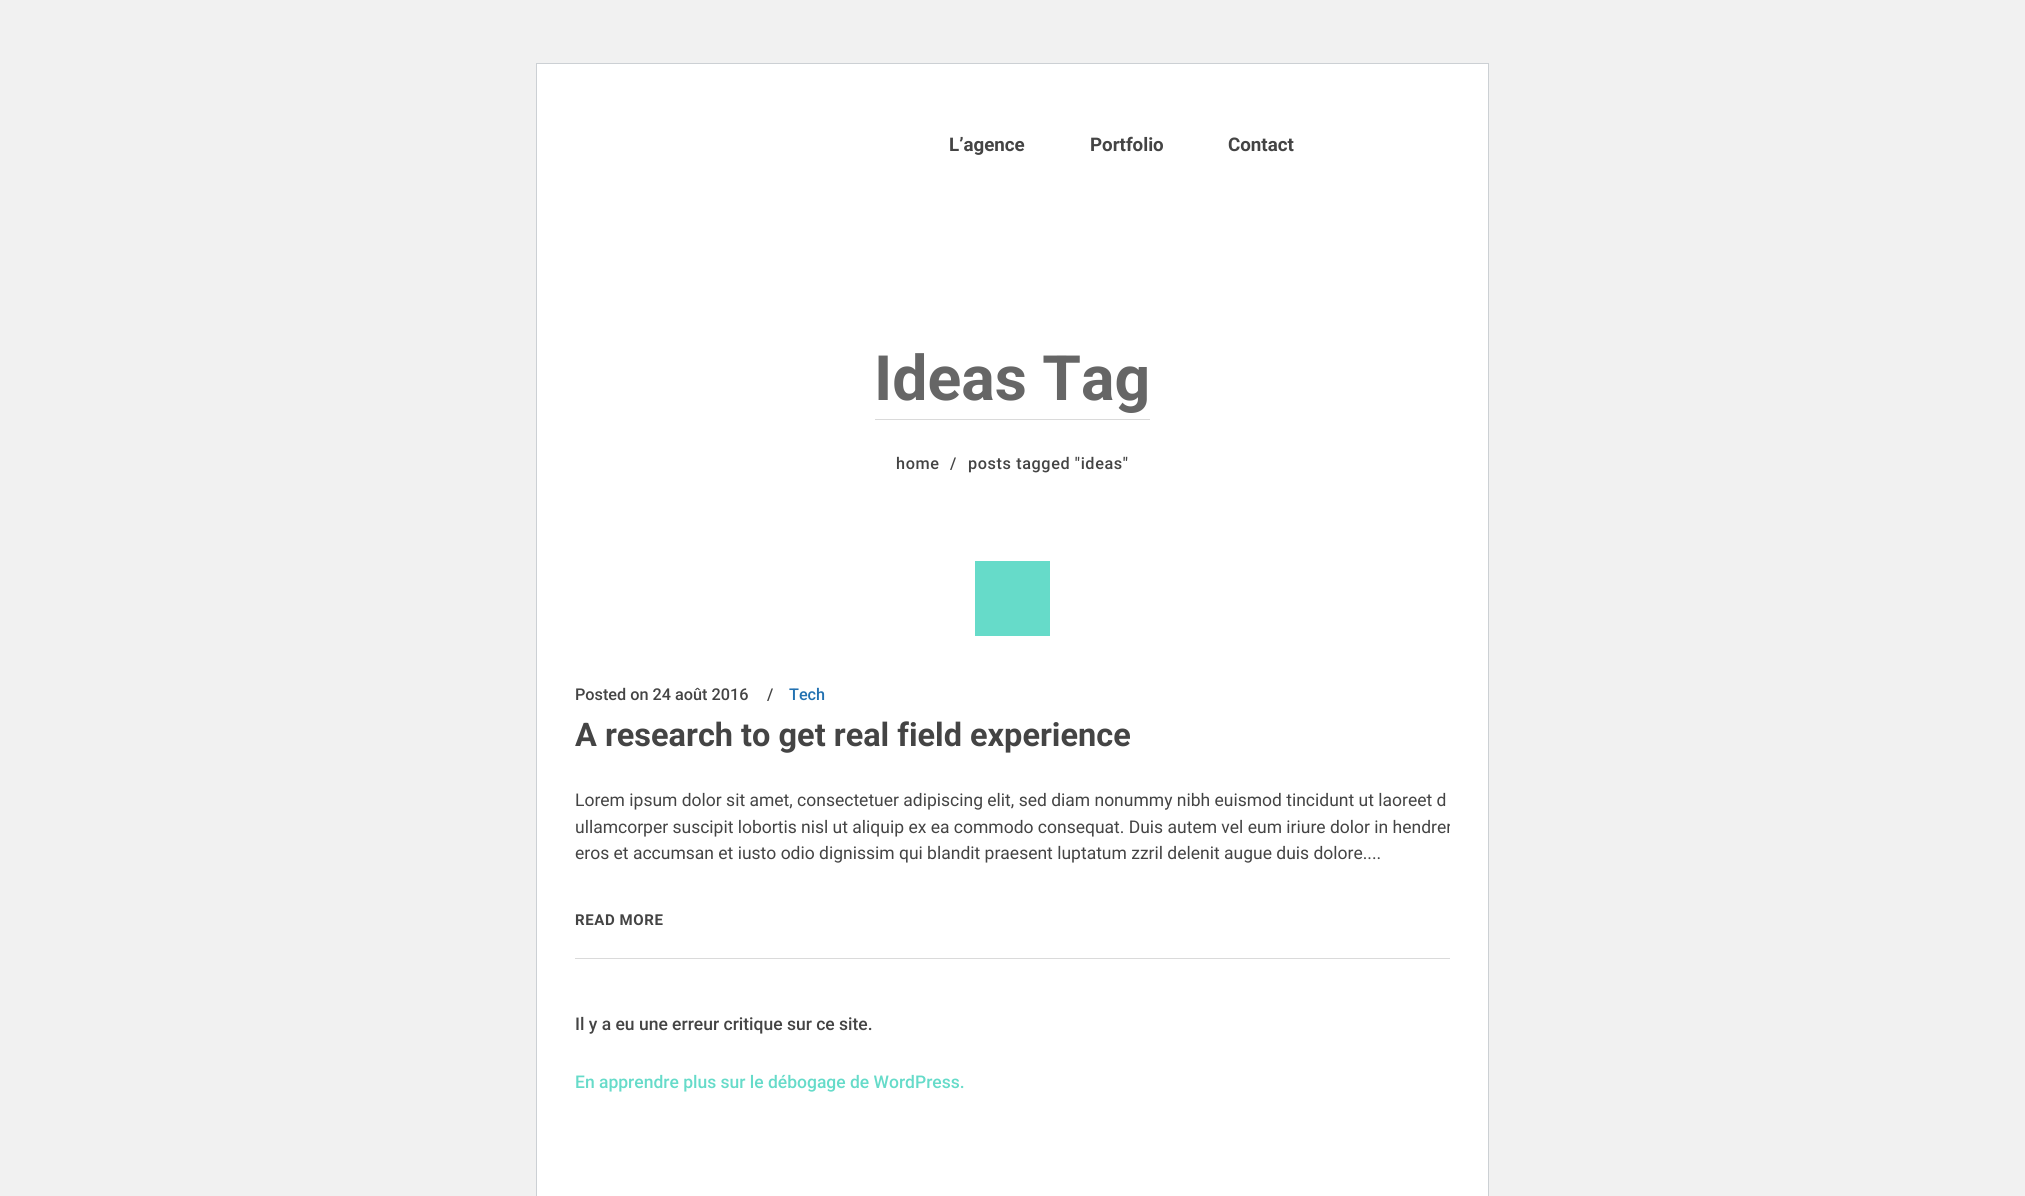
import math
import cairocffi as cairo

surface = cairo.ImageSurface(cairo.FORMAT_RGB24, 2025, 1196)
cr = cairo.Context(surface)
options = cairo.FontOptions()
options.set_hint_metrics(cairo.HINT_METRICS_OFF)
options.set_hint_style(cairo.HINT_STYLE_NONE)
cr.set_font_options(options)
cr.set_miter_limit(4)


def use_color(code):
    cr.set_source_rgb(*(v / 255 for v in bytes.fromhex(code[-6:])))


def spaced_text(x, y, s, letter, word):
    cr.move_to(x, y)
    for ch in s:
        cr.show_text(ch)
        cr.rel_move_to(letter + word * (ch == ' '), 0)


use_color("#f1f1f1")
cr.paint()
use_color("#ffffff")
cr.rectangle(536.5, 63.5, 952, 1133)
cr.fill_preserve()
use_color("#ccd0d4")
cr.set_line_width(1)
cr.stroke()
cr.select_font_face("Roboto", cairo.FONT_SLANT_NORMAL, cairo.FONT_WEIGHT_BOLD)
cr.set_font_size(18.75)
use_color("#444444")
cr.move_to(949, 151)
cr.show_text("L’agence")
cr.move_to(1090, 151)
cr.show_text("Portfolio")
cr.move_to(1228, 151)
cr.show_text("Contact")
use_color("#dadada")
cr.rectangle(875, 419, 275, 1)
cr.fill()
cr.set_font_size(62.5)
use_color("#666666")
cr.move_to(874, 400)
cr.show_text("Ideas Tag")
cr.select_font_face("Roboto Medium")
cr.set_font_size(16.25)
use_color("#444444")
spaced_text(896, 469, "home", 0.6, 0)
spaced_text(950, 469, "/", 0.6, 0)
spaced_text(968, 469, "posts tagged \"ideas\"", 0.6, 0)
cr.move_to(575, 700)
cr.show_text("Posted on 24 août 2016")
cr.move_to(767, 700)
cr.show_text("/")
use_color("#2271b1")
cr.move_to(789, 700)
cr.show_text("Tech")
cr.select_font_face("Roboto", cairo.FONT_SLANT_NORMAL, cairo.FONT_WEIGHT_BOLD)
cr.set_font_size(32.5)
use_color("#444444")
cr.move_to(575, 746)
cr.show_text("A research to get real field experience")
cr.select_font_face("Roboto")
cr.set_font_size(17.5)
cr.move_to(575, 806)
cr.show_text("Lorem ipsum dolor sit amet, consectetuer adipiscing elit, sed diam nonummy nibh euismod tincidunt ut laoreet d")
cr.save()
cr.rectangle(575, 83, 875, 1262)
cr.clip()
cr.move_to(575, 833)
cr.show_text("ullamcorper suscipit lobortis nisl ut aliquip ex ea commodo consequat. Duis autem vel eum iriure dolor in hendrer")
cr.restore()
cr.move_to(575, 859)
cr.show_text("eros et accumsan et iusto odio dignissim qui blandit praesent luptatum zzril delenit augue duis dolore....")
cr.select_font_face("Roboto", cairo.FONT_SLANT_NORMAL, cairo.FONT_WEIGHT_BOLD)
cr.set_font_size(15)
spaced_text(575, 925, "READ MORE", 0.6, 0)
use_color("#dadada")
cr.rectangle(575, 958, 875, 1)
cr.fill()
cr.select_font_face("Roboto Medium")
cr.set_font_size(17.5)
use_color("#444444")
cr.move_to(575, 1030)
cr.show_text("Il y a eu une erreur critique sur ce site.")
use_color("#66dbc9")
cr.move_to(575, 1088)
cr.show_text("En apprendre plus sur le débogage de WordPress.")
cr.rectangle(975, 561, 75, 75)
cr.fill()
surface.write_to_png("result.png")
